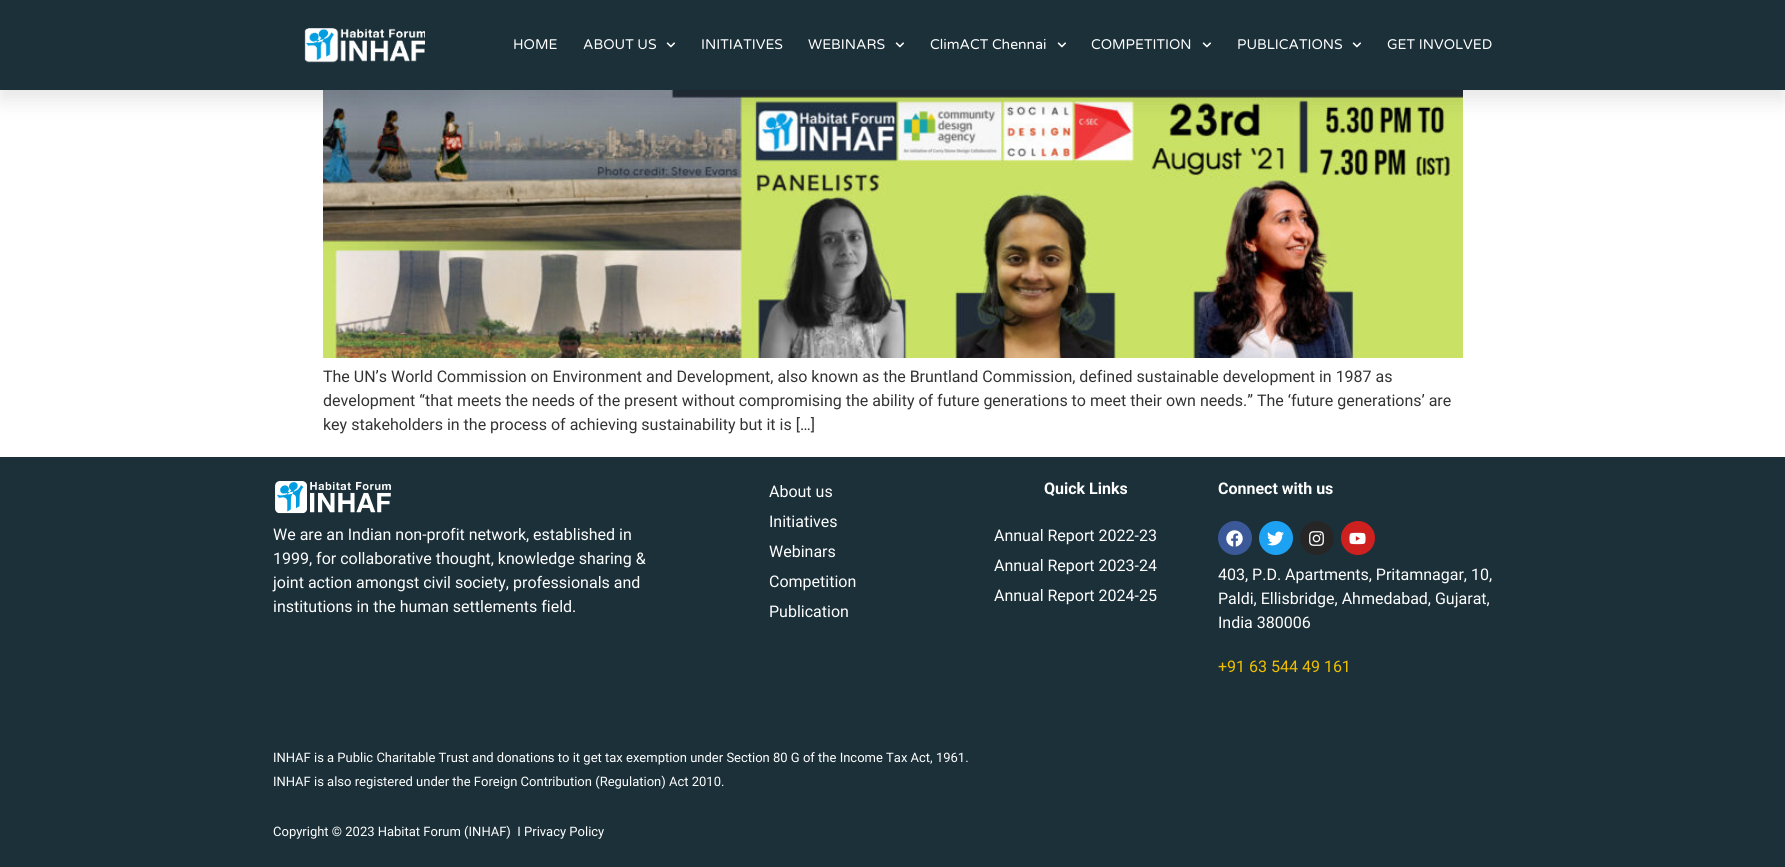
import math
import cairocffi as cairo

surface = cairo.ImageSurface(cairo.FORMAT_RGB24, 1785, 867)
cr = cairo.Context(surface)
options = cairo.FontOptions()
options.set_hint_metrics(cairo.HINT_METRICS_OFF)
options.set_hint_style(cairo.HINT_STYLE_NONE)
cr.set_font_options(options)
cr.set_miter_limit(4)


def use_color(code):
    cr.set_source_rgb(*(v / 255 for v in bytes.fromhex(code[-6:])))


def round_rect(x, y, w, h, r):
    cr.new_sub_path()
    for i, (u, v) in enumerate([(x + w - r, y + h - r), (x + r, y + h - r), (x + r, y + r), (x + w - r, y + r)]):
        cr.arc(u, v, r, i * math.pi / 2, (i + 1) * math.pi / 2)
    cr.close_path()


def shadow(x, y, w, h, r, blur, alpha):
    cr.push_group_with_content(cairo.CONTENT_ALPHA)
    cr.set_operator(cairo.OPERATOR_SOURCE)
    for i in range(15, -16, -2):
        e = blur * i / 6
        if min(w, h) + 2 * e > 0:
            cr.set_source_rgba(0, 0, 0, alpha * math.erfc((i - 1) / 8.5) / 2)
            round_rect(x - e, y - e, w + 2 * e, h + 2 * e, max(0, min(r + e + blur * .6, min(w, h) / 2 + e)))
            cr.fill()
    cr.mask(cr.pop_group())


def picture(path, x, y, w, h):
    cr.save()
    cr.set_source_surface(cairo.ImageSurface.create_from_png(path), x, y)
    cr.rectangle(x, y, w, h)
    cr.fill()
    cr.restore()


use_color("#ffffff")
cr.paint()
picture("img3.png", 323, 90, 1140, 268)
use_color("#000000")
shadow(0, 10, 1785, 90, 0, 10, 0.1)
use_color("#1b3039")
cr.rectangle(0, 0, 1785, 90)
cr.fill()
picture("img1.png", 304, 28, 121, 35)
cr.select_font_face("Varela Round")
cr.set_font_size(14)
use_color("#ffffff")
cr.move_to(513, 49)
cr.show_text("HOME")
cr.move_to(583, 49)
cr.show_text("ABOUT US")
picture("img2.png", 666, 42, 9, 6)
cr.move_to(701, 49)
cr.show_text("INITIATIVES")
cr.move_to(808, 49)
cr.show_text("WEBINARS")
picture("img2.png", 895, 42, 9, 6)
cr.move_to(930, 49)
cr.show_text("ClimACT Chennai")
picture("img2.png", 1057, 42, 9, 6)
cr.move_to(1091, 49)
cr.show_text("COMPETITION")
picture("img2.png", 1202, 42, 9, 6)
cr.move_to(1237, 49)
cr.show_text("PUBLICATIONS")
picture("img2.png", 1352, 42, 9, 6)
cr.move_to(1387, 49)
cr.show_text("GET INVOLVED")
cr.select_font_face("Roboto")
cr.set_font_size(16)
use_color("#333333")
cr.move_to(323, 382)
cr.show_text("The UN’s World Commission on Environment and Development, also known as the Bruntland Commission, defined sustainable development in 1987 as")
cr.move_to(323, 406)
cr.show_text("development “that meets the needs of the present without compromising the ability of future generations to meet their own needs.” The ‘future generations’ are")
cr.move_to(323, 430)
cr.show_text("key stakeholders in the process of achieving sustainability but it is […]")
use_color("#1b3039")
cr.rectangle(0, 457, 1785, 410)
cr.fill()
picture("img4.png", 275, 481, 116, 33)
use_color("#ffffff")
cr.move_to(273, 540)
cr.show_text("We are an Indian non-profit network, established in")
cr.move_to(273, 564)
cr.show_text("1999, for collaborative thought, knowledge sharing &")
cr.move_to(273, 588)
cr.show_text("joint action amongst civil society, professionals and")
cr.move_to(273, 612)
cr.show_text("institutions in the human settlements field.")
cr.move_to(769, 497)
cr.show_text("About us")
cr.move_to(769, 527)
cr.show_text("Initiatives")
cr.move_to(769, 557)
cr.show_text("Webinars")
cr.move_to(769, 587)
cr.show_text("Competition")
cr.move_to(769, 617)
cr.show_text("Publication")
cr.select_font_face("Roboto", cairo.FONT_SLANT_NORMAL, cairo.FONT_WEIGHT_BOLD)
cr.move_to(1044, 494)
cr.show_text("Quick Links")
cr.select_font_face("Roboto")
cr.move_to(994, 541)
cr.show_text("Annual Report 2022-23")
cr.move_to(994, 571)
cr.show_text("Annual Report 2023-24")
cr.move_to(994, 601)
cr.show_text("Annual Report 2024-25")
cr.select_font_face("Roboto", cairo.FONT_SLANT_NORMAL, cairo.FONT_WEIGHT_BOLD)
cr.move_to(1218, 494)
cr.show_text("Connect with us")
use_color("#3b5998")
cr.new_path()
cr.arc(1235, 538, 17, 0, 2 * math.pi)
cr.fill()
picture("img5.png", 1226, 530, 17, 17)
use_color("#1da1f2")
cr.arc(1276, 538, 17, 0, 2 * math.pi)
cr.fill()
picture("img6.png", 1267, 531, 17, 15)
use_color("#262626")
cr.arc(1317, 538, 17, 0, 2 * math.pi)
cr.fill()
picture("img7.png", 1309, 531, 15, 15)
use_color("#cd201f")
cr.arc(1358, 538, 17, 0, 2 * math.pi)
cr.fill()
picture("img8.png", 1349, 532, 17, 13)
cr.select_font_face("Roboto")
use_color("#ffffff")
cr.move_to(1218, 580)
cr.show_text("403, P.D. Apartments, Pritamnagar, 10,")
cr.move_to(1218, 604)
cr.show_text("Paldi, Ellisbridge, Ahmedabad, Gujarat,")
cr.move_to(1218, 628)
cr.show_text("India 380006")
use_color("#f0c000")
cr.move_to(1218, 672)
cr.show_text("+91 63 544 49 161")
cr.set_font_size(13)
use_color("#ffffff")
cr.move_to(273, 762)
cr.show_text("INHAF is a Public Charitable Trust and donations to it get tax exemption under Section 80 G of the Income Tax Act, 1961.")
cr.move_to(273, 786)
cr.show_text("INHAF is also registered under the Foreign Contribution (Regulation) Act 2010.")
cr.move_to(273, 836)
cr.show_text("Copyright © 2023 Habitat Forum (INHAF)  I Privacy Policy")
surface.write_to_png("result.png")
